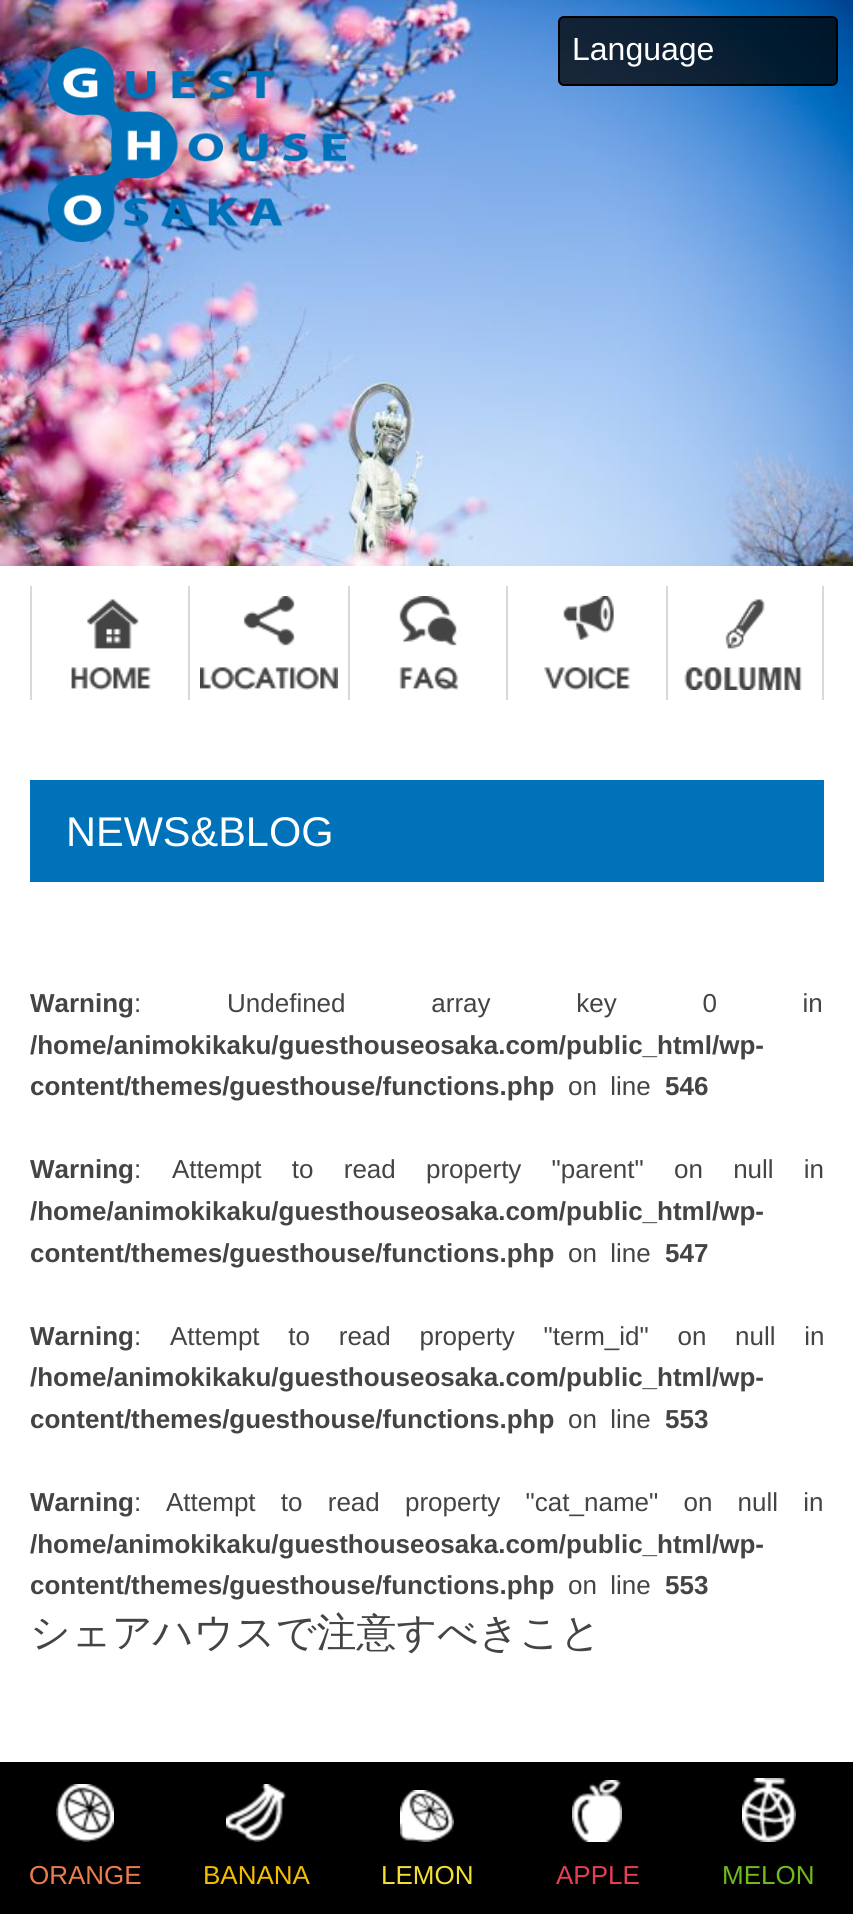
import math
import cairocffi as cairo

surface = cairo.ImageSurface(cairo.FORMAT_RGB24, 853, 1914)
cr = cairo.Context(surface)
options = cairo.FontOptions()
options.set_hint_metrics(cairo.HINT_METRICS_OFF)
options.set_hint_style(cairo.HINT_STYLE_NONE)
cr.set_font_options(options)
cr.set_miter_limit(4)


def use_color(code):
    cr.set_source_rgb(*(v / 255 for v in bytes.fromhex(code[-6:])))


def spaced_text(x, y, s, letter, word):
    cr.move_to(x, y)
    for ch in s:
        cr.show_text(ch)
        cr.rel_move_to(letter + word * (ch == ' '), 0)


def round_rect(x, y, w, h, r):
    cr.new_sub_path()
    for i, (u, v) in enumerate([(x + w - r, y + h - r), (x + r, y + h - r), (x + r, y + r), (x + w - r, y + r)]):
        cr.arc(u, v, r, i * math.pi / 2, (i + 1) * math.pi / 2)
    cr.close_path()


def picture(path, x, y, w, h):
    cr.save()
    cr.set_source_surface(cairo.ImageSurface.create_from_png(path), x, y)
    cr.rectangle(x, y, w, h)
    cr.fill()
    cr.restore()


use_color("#ffffff")
cr.paint()
picture("img1.png", 0, 0, 853, 566)
picture("img2.png", 48, 48, 298, 194)
cr.set_source_rgba(0, 0, 0, 0.75)
round_rect(559, 17, 278, 68, 5)
cr.fill_preserve()
use_color("#000000")
cr.stroke()
cr.select_font_face("Liberation Sans")
cr.set_font_size(32)
use_color("#ffffff")
cr.move_to(572, 60)
cr.show_text("Language")
use_color("#d9d9d9")
cr.rectangle(30, 586, 2, 114)
cr.fill()
picture("img3.png", 71, 599, 80, 91)
cr.rectangle(188, 586, 2, 114)
cr.fill()
picture("img4.png", 200, 596, 138, 94)
cr.rectangle(348, 586, 2, 114)
cr.fill()
picture("img5.png", 399, 596, 60, 94)
cr.rectangle(506, 586, 2, 114)
cr.fill()
picture("img6.png", 544, 596, 86, 94)
cr.rectangle(822, 586, 2, 114)
cr.fill()
cr.rectangle(666, 586, 2, 114)
cr.fill()
picture("img7.png", 684, 599, 118, 91)
use_color("#0072b9")
cr.rectangle(30, 780, 794, 102)
cr.fill()
cr.set_font_size(41.5)
use_color("#ffffff")
cr.move_to(66, 846)
cr.show_text("NEWS&BLOG")
cr.select_font_face("Liberation Sans", cairo.FONT_SLANT_NORMAL, cairo.FONT_WEIGHT_BOLD)
cr.set_font_size(26)
use_color("#444444")
cr.move_to(30, 1012)
cr.show_text("Warning")
cr.select_font_face("Liberation Sans")
cr.move_to(134, 1012)
cr.show_text(":")
spaced_text(227, 1012, "Undefined array key 0 in", 0, 78.5)
cr.select_font_face("Liberation Sans", cairo.FONT_SLANT_NORMAL, cairo.FONT_WEIGHT_BOLD)
cr.move_to(30, 1054)
cr.show_text("/home/animokikaku/guesthouseosaka.com/public_html/wp-")
cr.move_to(30, 1095)
cr.show_text("content/themes/guesthouse/functions.php")
cr.select_font_face("Liberation Sans")
spaced_text(568, 1095, "on line", 0, 6)
cr.select_font_face("Liberation Sans", cairo.FONT_SLANT_NORMAL, cairo.FONT_WEIGHT_BOLD)
cr.move_to(665, 1095)
cr.show_text("546")
cr.move_to(30, 1178)
cr.show_text("Warning")
cr.select_font_face("Liberation Sans")
cr.move_to(134, 1178)
cr.show_text(":")
spaced_text(172, 1178, "Attempt to read property \"parent\" on null in", 0, 23)
cr.select_font_face("Liberation Sans", cairo.FONT_SLANT_NORMAL, cairo.FONT_WEIGHT_BOLD)
cr.move_to(30, 1220)
cr.show_text("/home/animokikaku/guesthouseosaka.com/public_html/wp-")
cr.move_to(30, 1262)
cr.show_text("content/themes/guesthouse/functions.php")
cr.select_font_face("Liberation Sans")
spaced_text(568, 1262, "on line", 0, 6)
cr.select_font_face("Liberation Sans", cairo.FONT_SLANT_NORMAL, cairo.FONT_WEIGHT_BOLD)
cr.move_to(665, 1262)
cr.show_text("547")
cr.move_to(30, 1345)
cr.show_text("Warning")
cr.select_font_face("Liberation Sans")
cr.move_to(134, 1345)
cr.show_text(":")
spaced_text(170, 1345, "Attempt to read property \"term_id\" on null in", 0, 21.5)
cr.select_font_face("Liberation Sans", cairo.FONT_SLANT_NORMAL, cairo.FONT_WEIGHT_BOLD)
cr.move_to(30, 1386)
cr.show_text("/home/animokikaku/guesthouseosaka.com/public_html/wp-")
cr.move_to(30, 1428)
cr.show_text("content/themes/guesthouse/functions.php")
cr.select_font_face("Liberation Sans")
spaced_text(568, 1428, "on line", 0, 6)
cr.select_font_face("Liberation Sans", cairo.FONT_SLANT_NORMAL, cairo.FONT_WEIGHT_BOLD)
cr.move_to(665, 1428)
cr.show_text("553")
cr.move_to(30, 1511)
cr.show_text("Warning")
cr.select_font_face("Liberation Sans")
cr.move_to(134, 1511)
cr.show_text(":")
spaced_text(166, 1511, "Attempt to read property \"cat_name\" on null in", 0, 18)
cr.select_font_face("Liberation Sans", cairo.FONT_SLANT_NORMAL, cairo.FONT_WEIGHT_BOLD)
cr.move_to(30, 1553)
cr.show_text("/home/animokikaku/guesthouseosaka.com/public_html/wp-")
cr.move_to(30, 1594)
cr.show_text("content/themes/guesthouse/functions.php")
cr.select_font_face("Liberation Sans")
spaced_text(568, 1594, "on line", 0, 6)
cr.select_font_face("Liberation Sans", cairo.FONT_SLANT_NORMAL, cairo.FONT_WEIGHT_BOLD)
cr.move_to(665, 1594)
cr.show_text("553")
cr.select_font_face("WenQuanYi Zen Hei Medium")
cr.set_font_size(40)
cr.move_to(30, 1646)
cr.show_text("シェアハウスで注意すべきこと")
use_color("#000000")
cr.rectangle(0, 1762, 853, 152)
cr.fill()
picture("img8.png", 56, 1784, 58, 58)
cr.select_font_face("Liberation Sans")
cr.set_font_size(26)
use_color("#eb7c4c")
cr.move_to(29, 1884)
cr.show_text("ORANGE")
picture("img9.png", 226, 1784, 60, 58)
use_color("#f4be00")
cr.move_to(203, 1884)
cr.show_text("BANANA")
picture("img10.png", 400, 1790, 54, 52)
use_color("#f2df33")
cr.move_to(381, 1884)
cr.show_text("LEMON")
picture("img11.png", 572, 1780, 50, 62)
use_color("#e43f54")
cr.move_to(556, 1884)
cr.show_text("APPLE")
picture("img12.png", 742, 1778, 54, 64)
use_color("#70bb19")
cr.move_to(722, 1884)
cr.show_text("MELON")
surface.write_to_png("result.png")
